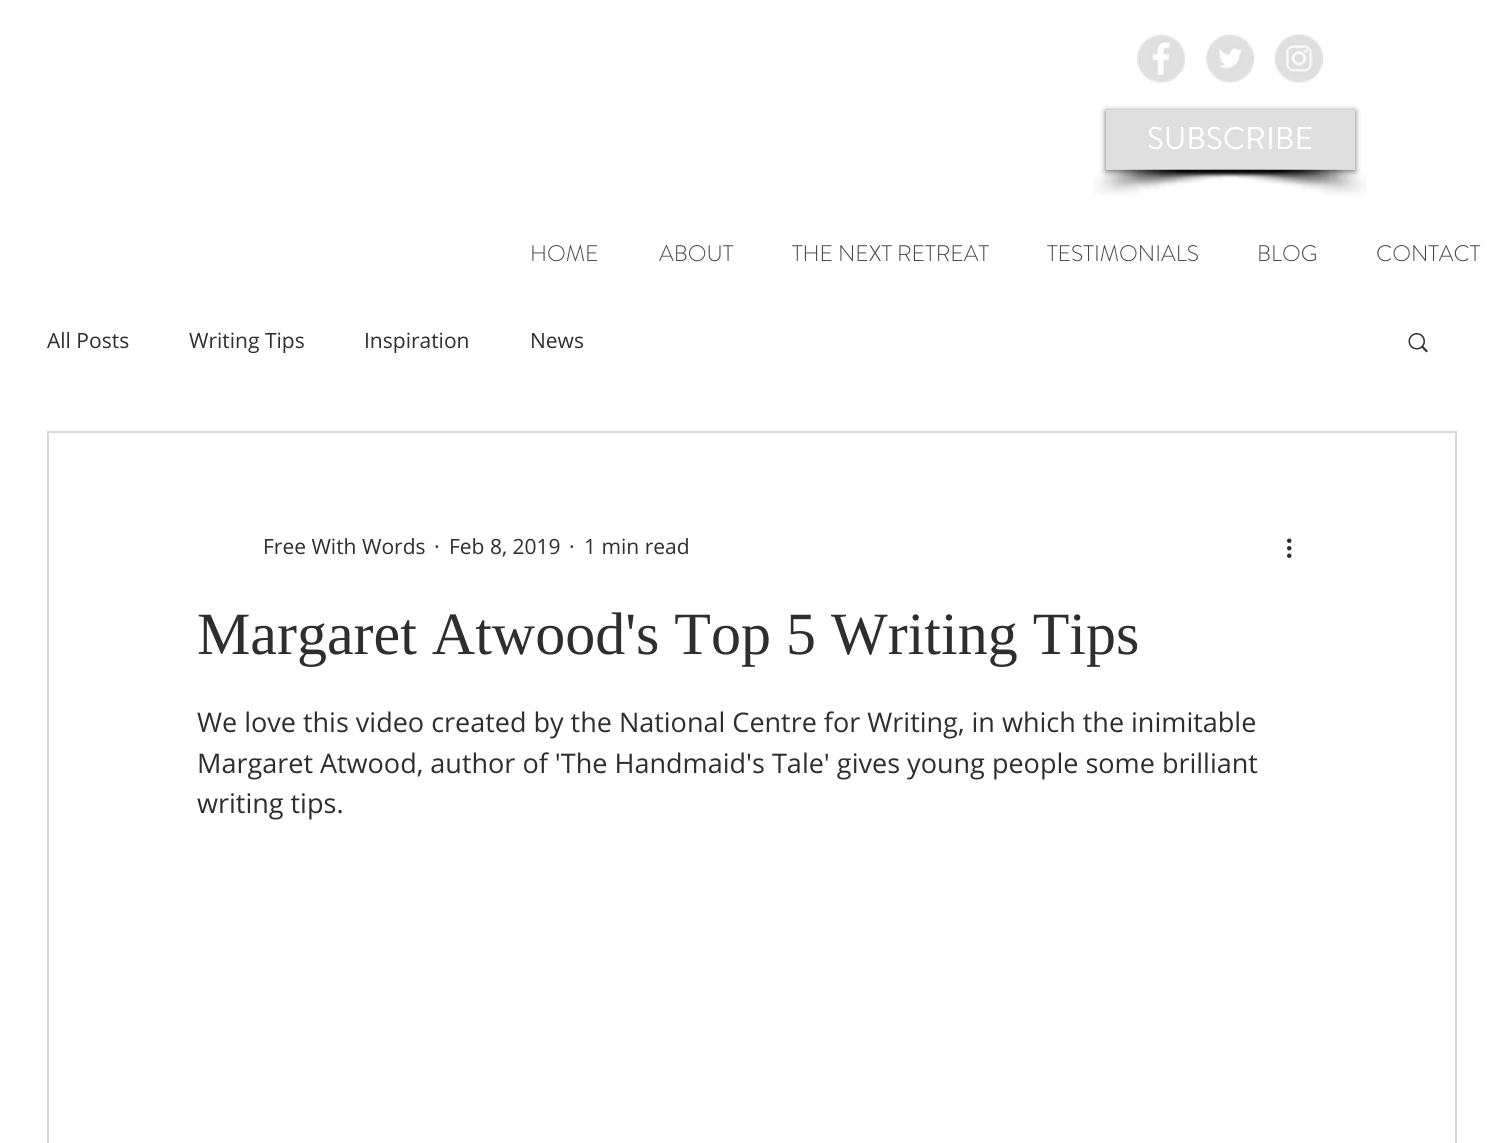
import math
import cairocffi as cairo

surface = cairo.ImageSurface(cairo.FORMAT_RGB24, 1503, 1143)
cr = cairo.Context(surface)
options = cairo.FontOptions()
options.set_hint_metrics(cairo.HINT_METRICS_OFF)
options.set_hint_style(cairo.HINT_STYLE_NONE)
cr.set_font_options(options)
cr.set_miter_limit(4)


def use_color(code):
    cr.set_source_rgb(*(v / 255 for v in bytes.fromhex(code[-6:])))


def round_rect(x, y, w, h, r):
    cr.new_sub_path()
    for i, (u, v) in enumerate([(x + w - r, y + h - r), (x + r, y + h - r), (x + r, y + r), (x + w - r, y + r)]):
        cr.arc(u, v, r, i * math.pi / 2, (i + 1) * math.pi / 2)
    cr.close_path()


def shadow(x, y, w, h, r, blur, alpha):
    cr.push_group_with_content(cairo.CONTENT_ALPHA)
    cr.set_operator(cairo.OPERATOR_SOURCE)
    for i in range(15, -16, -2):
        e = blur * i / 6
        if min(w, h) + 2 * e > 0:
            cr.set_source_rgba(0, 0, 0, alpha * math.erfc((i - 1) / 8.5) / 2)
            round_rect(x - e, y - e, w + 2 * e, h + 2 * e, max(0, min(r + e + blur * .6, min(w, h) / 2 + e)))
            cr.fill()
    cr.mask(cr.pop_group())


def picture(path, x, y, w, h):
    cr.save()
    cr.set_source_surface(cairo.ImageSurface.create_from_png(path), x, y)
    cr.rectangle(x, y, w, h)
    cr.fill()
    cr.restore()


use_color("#ffffff")
cr.paint()
picture("img1.png", 1137, 34, 48, 49)
picture("img2.png", 1206, 34, 48, 49)
picture("img3.png", 1275, 34, 48, 49)
picture("img4.png", 1093, 169, 223, 27)
picture("img5.png", 1159, 169, 208, 27)
cr.save()
cr.set_fill_rule(cairo.FILL_RULE_EVEN_ODD)
cr.new_path()
cr.move_to(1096, 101)
cr.line_to(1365, 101)
cr.line_to(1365, 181)
cr.line_to(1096, 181)
cr.close_path()
cr.move_to(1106, 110)
cr.line_to(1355, 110)
cr.line_to(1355, 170)
cr.line_to(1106, 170)
cr.close_path()
cr.clip()
use_color("#000000")
shadow(1106, 111, 249, 60, 0, 3, 0.6)
cr.restore()
cr.set_source_rgba(0.8, 0.8, 0.8, 0.63)
cr.rectangle(1106, 110, 249, 60)
cr.fill()
cr.select_font_face("Brandon Grotesque")
cr.set_font_size(31.5)
use_color("#ffffff")
cr.move_to(1147, 149)
cr.show_text("SUBSCRIBE")
cr.select_font_face("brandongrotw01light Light")
cr.set_font_size(22.5)
use_color("#444444")
cr.move_to(530, 261)
cr.show_text("HOME")
cr.move_to(659, 261)
cr.show_text("ABOUT")
cr.move_to(792, 261)
cr.show_text("THE NEXT RETREAT")
cr.move_to(1047, 261)
cr.show_text("TESTIMONIALS")
cr.move_to(1257, 261)
cr.show_text("BLOG")
cr.move_to(1376, 261)
cr.show_text("CONTACT")
cr.select_font_face("Open Sans")
cr.set_font_size(21)
use_color("#2f2e2e")
cr.move_to(47, 348)
cr.show_text("All Posts")
cr.move_to(189, 348)
cr.show_text("Writing Tips")
cr.move_to(364, 348)
cr.show_text("Inspiration")
cr.move_to(530, 348)
cr.show_text("News")
picture("img6.png", 1408, 333, 20, 20)
cr.rectangle(48, 432, 1408, 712)
use_color("#d9d9d9")
cr.stroke()
use_color("#2f2e2e")
cr.move_to(263, 554)
cr.show_text("Free With Words")
cr.move_to(434, 554)
cr.show_text("·")
cr.move_to(449, 554)
cr.show_text("Feb 8, 2019")
cr.move_to(569, 554)
cr.show_text("·")
cr.move_to(584, 554)
cr.show_text("1 min read")
picture("img7.png", 1287, 538, 5, 20)
cr.select_font_face("Liberation Serif")
cr.set_font_size(60)
cr.move_to(197, 654)
cr.show_text("Margaret Atwood's Top 5 Writing Tips")
cr.select_font_face("Open Sans")
cr.set_font_size(27)
cr.move_to(197, 732)
cr.show_text("We love this video created by the National Centre for Writing, in which the inimitable")
cr.move_to(197, 773)
cr.show_text("Margaret Atwood, author of 'The Handmaid's Tale' gives young people some brilliant")
cr.move_to(197, 813)
cr.show_text("writing tips.")
surface.write_to_png("result.png")
